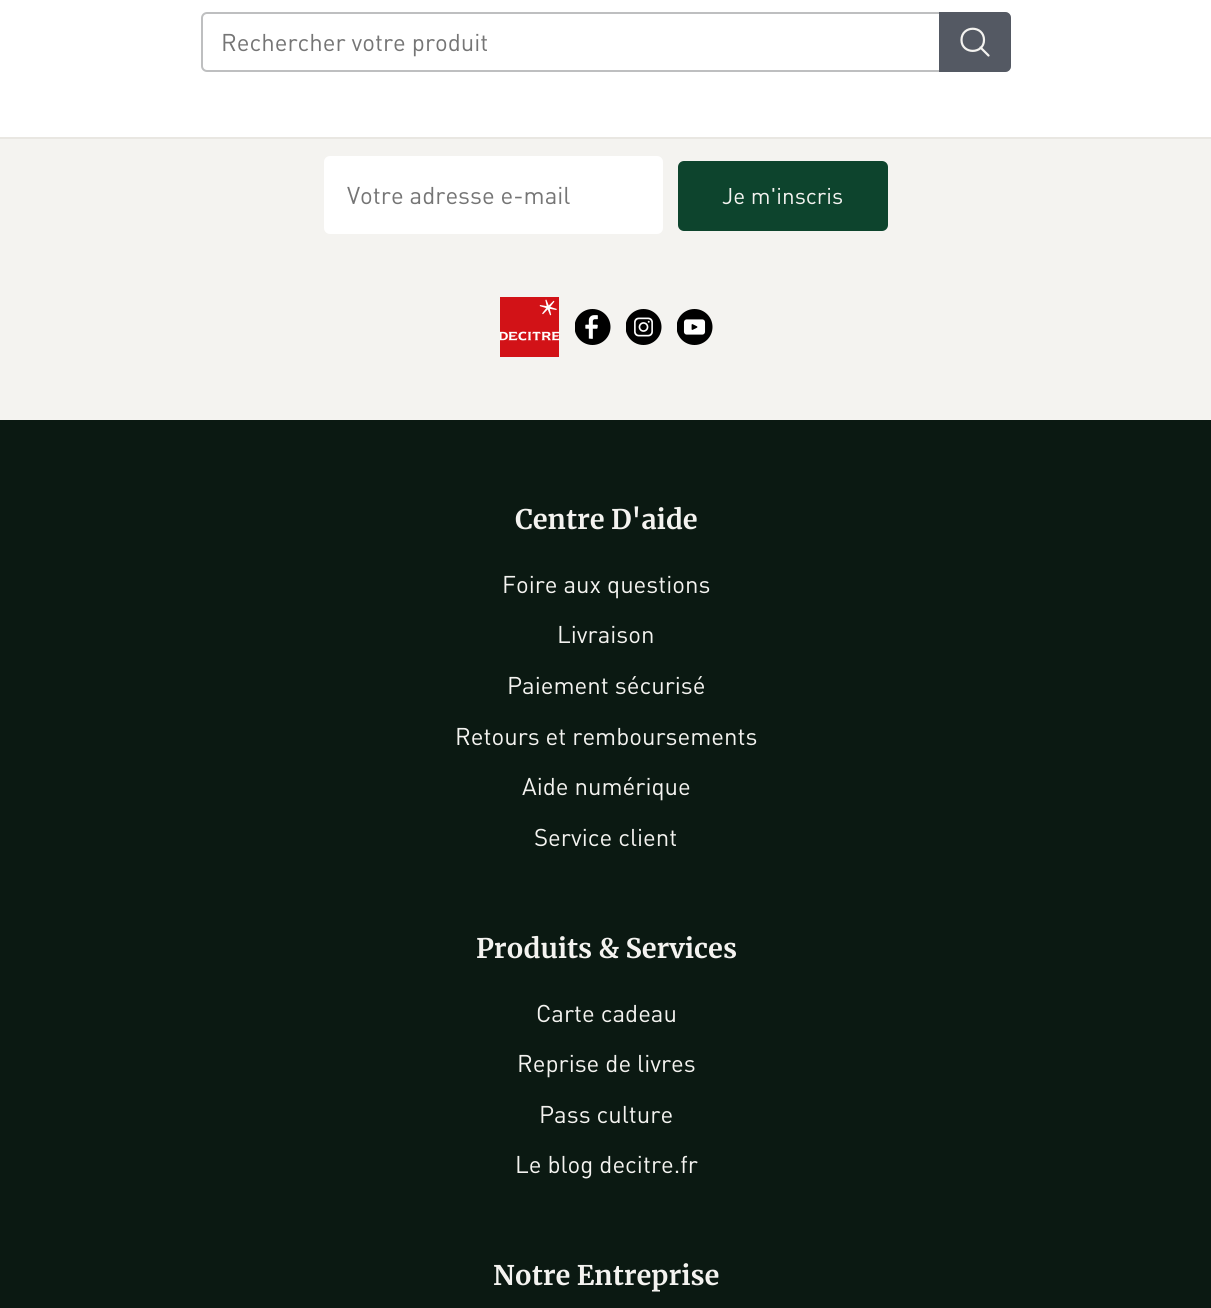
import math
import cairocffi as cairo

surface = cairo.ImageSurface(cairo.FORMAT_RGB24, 1211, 1308)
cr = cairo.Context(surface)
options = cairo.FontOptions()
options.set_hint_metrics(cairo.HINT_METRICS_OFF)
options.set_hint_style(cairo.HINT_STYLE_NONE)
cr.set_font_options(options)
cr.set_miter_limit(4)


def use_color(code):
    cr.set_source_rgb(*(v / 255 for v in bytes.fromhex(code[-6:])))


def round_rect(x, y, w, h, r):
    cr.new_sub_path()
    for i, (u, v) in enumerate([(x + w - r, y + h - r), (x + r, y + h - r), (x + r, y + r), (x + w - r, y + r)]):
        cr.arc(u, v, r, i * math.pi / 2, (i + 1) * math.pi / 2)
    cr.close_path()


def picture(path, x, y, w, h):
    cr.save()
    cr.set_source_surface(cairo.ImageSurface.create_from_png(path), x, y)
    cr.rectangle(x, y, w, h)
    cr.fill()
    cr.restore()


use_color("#f4f3f0")
cr.paint()
use_color("#ffffff")
cr.rectangle(0, 0, 1211, 137)
cr.fill()
round_rect(202, 13, 808, 58, 5)
use_color("#bebfc0")
cr.stroke()
cr.select_font_face("DIN")
cr.set_font_size(24)
use_color("#757575")
cr.move_to(221, 51)
cr.show_text("Rechercher votre produit")
use_color("#545963")
cr.new_path()
cr.move_to(939, 12)
cr.line_to(1005, 12)
cr.curve_to(1008.5, 12, 1011, 14.5, 1011, 18)
cr.line_to(1011, 66)
cr.curve_to(1011, 69.5, 1008.5, 72, 1005, 72)
cr.line_to(939, 72)
cr.close_path()
cr.fill()
cr.new_path()
cr.move_to(980.5, 47.5)
cr.line_to(988.5, 55.5)
cr.move_to(984, 40)
cr.curve_to(984, 54.5, 961.5, 54.5, 961.5, 40)
cr.curve_to(961.5, 25, 984, 25, 984, 40)
cr.close_path()
use_color("#f4f3f0")
cr.set_line_width(2.2)
cr.set_line_cap(cairo.LINE_CAP_ROUND)
cr.set_line_join(cairo.LINE_JOIN_ROUND)
cr.stroke()
use_color("#e9e7e2")
cr.rectangle(0, 137, 1211, 2)
cr.fill()
use_color("#ffffff")
round_rect(324, 156, 339, 78, 6)
cr.fill()
use_color("#757575")
cr.move_to(347, 204)
cr.show_text("Votre adresse e-mail")
use_color("#0d442d")
round_rect(679.5, 162.5, 207, 67, 4.5)
cr.fill_preserve()
cr.set_line_width(3)
cr.set_line_cap(cairo.LINE_CAP_BUTT)
cr.set_line_join(cairo.LINE_JOIN_MITER)
cr.stroke()
cr.set_font_size(22.5)
use_color("#f4f3f0")
cr.move_to(722, 204)
cr.show_text("Je m'inscris")
picture("img1.png", 500, 297, 60, 60)
picture("img2.png", 575, 309, 36, 36)
picture("img3.png", 626, 309, 36, 36)
picture("img4.png", 677, 309, 36, 36)
use_color("#0b1912")
cr.rectangle(0, 420, 1211, 888)
cr.fill()
cr.select_font_face("Merriweather", cairo.FONT_SLANT_NORMAL, cairo.FONT_WEIGHT_BOLD)
cr.set_font_size(27)
use_color("#f4f3f0")
cr.move_to(515, 529)
cr.show_text("Centre D'aide")
cr.select_font_face("DIN")
cr.set_font_size(24)
cr.move_to(502, 593)
cr.show_text("Foire aux questions")
cr.move_to(557, 643)
cr.show_text("Livraison")
cr.move_to(507, 694)
cr.show_text("Paiement sécurisé")
cr.move_to(455, 745)
cr.show_text("Retours et remboursements")
cr.move_to(522, 795)
cr.show_text("Aide numérique")
cr.move_to(534, 846)
cr.show_text("Service client")
cr.select_font_face("Merriweather", cairo.FONT_SLANT_NORMAL, cairo.FONT_WEIGHT_BOLD)
cr.set_font_size(27)
cr.move_to(476, 958)
cr.show_text("Produits & Services")
cr.select_font_face("DIN")
cr.set_font_size(24)
cr.move_to(536, 1022)
cr.show_text("Carte cadeau")
cr.move_to(517, 1072)
cr.show_text("Reprise de livres")
cr.move_to(539, 1123)
cr.show_text("Pass culture")
cr.move_to(515, 1173)
cr.show_text("Le blog decitre.fr")
cr.select_font_face("Merriweather", cairo.FONT_SLANT_NORMAL, cairo.FONT_WEIGHT_BOLD)
cr.set_font_size(27)
cr.move_to(493, 1285)
cr.show_text("Notre Entreprise")
surface.write_to_png("result.png")
